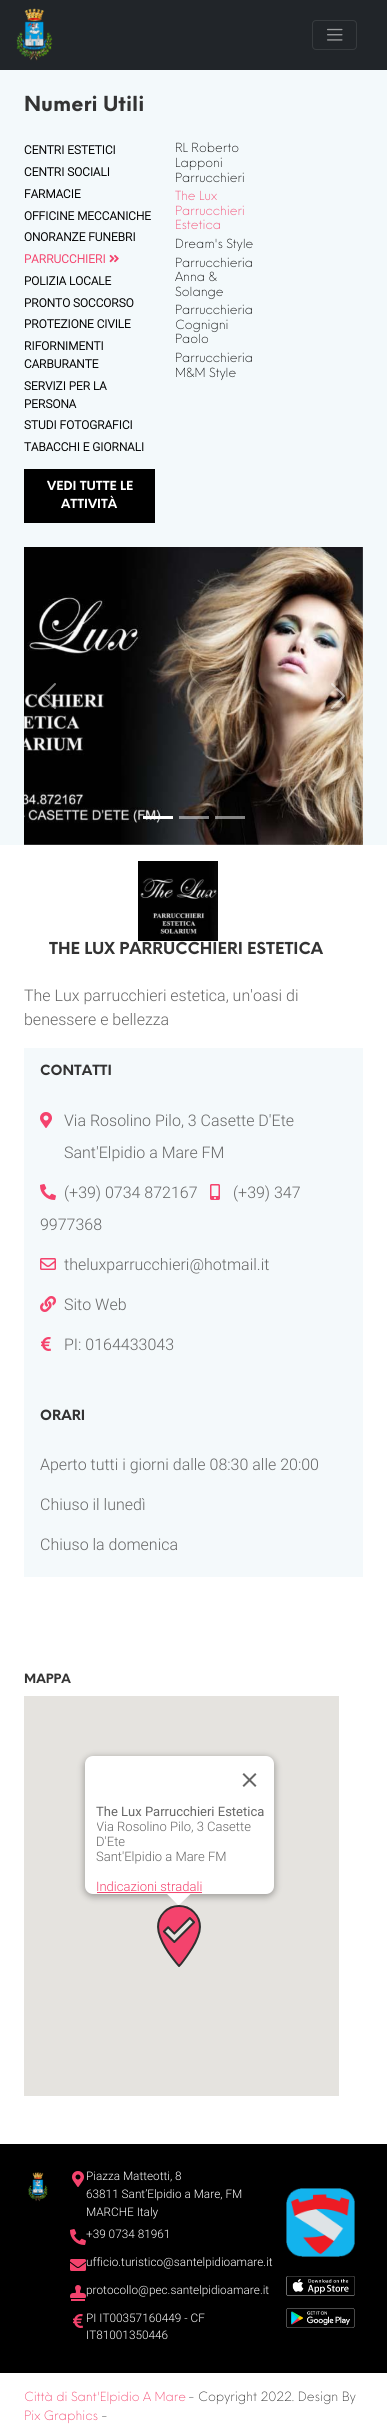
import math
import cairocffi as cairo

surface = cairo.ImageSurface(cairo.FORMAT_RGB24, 387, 2424)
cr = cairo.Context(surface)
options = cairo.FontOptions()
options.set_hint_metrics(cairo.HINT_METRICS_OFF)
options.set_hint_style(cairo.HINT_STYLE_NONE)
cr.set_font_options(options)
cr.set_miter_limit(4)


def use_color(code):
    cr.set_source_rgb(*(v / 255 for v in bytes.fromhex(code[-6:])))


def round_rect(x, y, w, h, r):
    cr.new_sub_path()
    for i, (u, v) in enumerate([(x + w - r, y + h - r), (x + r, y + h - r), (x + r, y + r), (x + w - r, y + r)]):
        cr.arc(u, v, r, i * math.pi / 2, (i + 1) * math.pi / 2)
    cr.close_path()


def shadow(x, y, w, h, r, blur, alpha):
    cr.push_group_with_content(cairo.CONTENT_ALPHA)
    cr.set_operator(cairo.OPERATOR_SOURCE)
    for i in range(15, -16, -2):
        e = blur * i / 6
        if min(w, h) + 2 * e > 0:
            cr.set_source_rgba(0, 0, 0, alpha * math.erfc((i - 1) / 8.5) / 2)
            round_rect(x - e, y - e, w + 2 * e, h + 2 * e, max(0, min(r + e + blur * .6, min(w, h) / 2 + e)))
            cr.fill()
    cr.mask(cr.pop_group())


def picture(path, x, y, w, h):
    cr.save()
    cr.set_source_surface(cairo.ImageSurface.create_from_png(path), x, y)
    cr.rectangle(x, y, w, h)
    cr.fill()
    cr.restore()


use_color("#ffffff")
cr.paint()
use_color("#212529")
cr.rectangle(0, 0, 387, 70)
cr.fill()
picture("img1.png", 16, 8, 37, 53)
round_rect(312.5, 20.5, 44, 29, 3.5)
use_color("#373b3e")
cr.set_line_width(1)
cr.stroke()
picture("img2.png", 327, 28, 16, 13)
use_color("#f3f9fb")
cr.rectangle(0, 70, 387, 775)
cr.fill()
cr.select_font_face("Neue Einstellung", cairo.FONT_SLANT_NORMAL, cairo.FONT_WEIGHT_BOLD)
cr.set_font_size(20.25)
use_color("#333333")
cr.move_to(24, 111)
cr.show_text("Numeri Utili")
cr.select_font_face("Roboto", cairo.FONT_SLANT_NORMAL, cairo.FONT_WEIGHT_BOLD)
cr.set_font_size(11.8)
use_color("#000000")
cr.move_to(24, 154)
cr.show_text("CENTRI ESTETICI")
cr.move_to(24, 176)
cr.show_text("CENTRI SOCIALI")
cr.move_to(24, 198)
cr.show_text("FARMACIE")
cr.move_to(24, 220)
cr.show_text("OFFICINE MECCANICHE")
cr.move_to(24, 241)
cr.show_text("ONORANZE FUNEBRI")
use_color("#f4436d")
cr.move_to(24, 263)
cr.show_text("PARRUCCHIERI")
picture("img3.png", 109, 254, 10, 9)
use_color("#000000")
cr.move_to(24, 285)
cr.show_text("POLIZIA LOCALE")
cr.move_to(24, 307)
cr.show_text("PRONTO SOCCORSO")
cr.move_to(24, 328)
cr.show_text("PROTEZIONE CIVILE")
cr.move_to(24, 350)
cr.show_text("RIFORNIMENTI")
cr.move_to(24, 368)
cr.show_text("CARBURANTE")
cr.move_to(24, 390)
cr.show_text("SERVIZI PER LA")
cr.move_to(24, 408)
cr.show_text("PERSONA")
cr.move_to(24, 429)
cr.show_text("STUDI FOTOGRAFICI")
cr.move_to(24, 451)
cr.show_text("TABACCHI E GIORNALI")
cr.rectangle(24, 469, 131, 54)
cr.fill()
cr.select_font_face("Neue Einstellung", cairo.FONT_SLANT_NORMAL, cairo.FONT_WEIGHT_BOLD)
cr.set_font_size(12.25)
use_color("#ffffff")
cr.move_to(47, 490)
cr.show_text("VEDI TUTTE LE")
cr.move_to(61, 508)
cr.show_text("ATTIVITÀ")
cr.select_font_face("Neue Einstellung Light")
use_color("#000000")
cr.move_to(175, 152)
cr.show_text("RL Roberto")
cr.move_to(175, 167)
cr.show_text("Lapponi")
cr.move_to(175, 182)
cr.show_text("Parrucchieri")
use_color("#f4436d")
cr.move_to(175, 200)
cr.show_text("The Lux")
cr.move_to(175, 215)
cr.show_text("Parrucchieri")
cr.move_to(175, 229)
cr.show_text("Estetica")
use_color("#000000")
cr.move_to(175, 248)
cr.show_text("Dream's Style")
cr.move_to(175, 267)
cr.show_text("Parrucchieria")
cr.move_to(175, 281)
cr.show_text("Anna &")
cr.move_to(175, 296)
cr.show_text("Solange")
cr.move_to(175, 314)
cr.show_text("Parrucchieria")
cr.move_to(175, 329)
cr.show_text("Cognigni")
cr.move_to(175, 343)
cr.show_text("Paolo")
cr.move_to(175, 362)
cr.show_text("Parrucchieria")
cr.move_to(175, 377)
cr.show_text("M&M Style")
picture("img4.png", 24, 547, 339, 298)
picture("img5.png", 42, 683, 14, 26)
picture("img6.png", 331, 683, 14, 26)
use_color("#ffffff")
cr.rectangle(143, 816, 30, 3)
cr.fill()
cr.set_source_rgba(1, 1, 1, 0.5)
cr.rectangle(179, 816, 30, 3)
cr.fill()
cr.rectangle(215, 816, 30, 3)
cr.fill()
use_color("#f4f9fb")
cr.rectangle(24, 1048, 339, 529)
cr.fill()
picture("img7.png", 138, 861, 80, 80)
cr.select_font_face("Neue Einstellung", cairo.FONT_SLANT_NORMAL, cairo.FONT_WEIGHT_BOLD)
cr.set_font_size(16.1)
use_color("#333333")
cr.move_to(49, 954)
cr.show_text("THE LUX PARRUCCHIERI ESTETICA")
cr.select_font_face("Roboto Light")
cr.set_font_size(16)
use_color("#666666")
cr.move_to(24, 1001)
cr.show_text("The Lux parrucchieri estetica, un'oasi di")
cr.move_to(24, 1025)
cr.show_text("benessere e bellezza")
cr.select_font_face("Neue Einstellung", cairo.FONT_SLANT_NORMAL, cairo.FONT_WEIGHT_BOLD)
cr.set_font_size(13.75)
use_color("#333333")
cr.move_to(40, 1075)
cr.show_text("CONTATTI")
picture("img8.png", 40, 1112, 12, 16)
cr.select_font_face("Roboto Light")
cr.set_font_size(16)
use_color("#666666")
cr.move_to(64, 1126)
cr.show_text("Via Rosolino Pilo, 3 Casette D'Ete")
cr.move_to(64, 1158)
cr.show_text("Sant'Elpidio a Mare FM")
picture("img9.png", 40, 1184, 16, 16)
cr.move_to(64, 1198)
cr.show_text("(+39) 0734 872167")
picture("img10.png", 210, 1184, 10, 16)
cr.move_to(233, 1198)
cr.show_text("(+39) 347")
cr.move_to(40, 1230)
cr.show_text("9977368")
picture("img11.png", 40, 1258, 16, 12)
cr.move_to(64, 1270)
cr.show_text("theluxparrucchieri@hotmail.it")
picture("img12.png", 40, 1296, 16, 16)
cr.move_to(64, 1310)
cr.show_text("Sito Web")
picture("img13.png", 41, 1337, 10, 14)
cr.move_to(64, 1350)
cr.show_text("PI: 0164433043")
cr.select_font_face("Neue Einstellung", cairo.FONT_SLANT_NORMAL, cairo.FONT_WEIGHT_BOLD)
cr.set_font_size(13.75)
use_color("#333333")
cr.move_to(40, 1420)
cr.show_text("ORARI")
cr.select_font_face("Roboto Light")
cr.set_font_size(16)
use_color("#666666")
cr.move_to(40, 1470)
cr.show_text("Aperto tutti i giorni dalle 08:30 alle 20:00")
cr.move_to(40, 1510)
cr.show_text("Chiuso il lunedì")
cr.move_to(40, 1550)
cr.show_text("Chiuso la domenica")
cr.select_font_face("Neue Einstellung", cairo.FONT_SLANT_NORMAL, cairo.FONT_WEIGHT_BOLD)
cr.set_font_size(12.5)
use_color("#333333")
cr.move_to(24, 1683)
cr.show_text("MAPPA")
use_color("#e5e3df")
cr.rectangle(24, 1696, 315, 400)
cr.fill()
picture("img15.png", 157, 1905, 44, 62)
use_color("#000000")
shadow(84, 1757, 191, 140, 9, 3.5, 0.3)
use_color("#ffffff")
round_rect(85, 1756, 189, 138, 8)
cr.fill()
picture("img14.png", 242, 1773, 15, 14)
cr.select_font_face("Roboto")
cr.set_font_size(13)
use_color("#666666")
cr.move_to(96, 1816)
cr.show_text("The Lux Parrucchieri Estetica")
cr.save()
cr.rectangle(97, 1804, 177, 90)
cr.clip()
cr.select_font_face("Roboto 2 Light")
cr.move_to(96, 1831)
cr.show_text("Via Rosolino Pilo, 3 Casette")
cr.restore()
cr.select_font_face("Roboto 2 Light")
cr.move_to(96, 1846)
cr.show_text("D'Ete")
cr.move_to(96, 1861)
cr.show_text("Sant'Elpidio a Mare FM")
use_color("#f4436d")
cr.move_to(96, 1891)
cr.show_text("Indicazioni stradali")
cr.rectangle(97, 1892, 105, 1)
cr.fill()
use_color("#ffffff")
cr.new_path()
cr.move_to(167, 1894)
cr.line_to(167, 1893.5)
cr.line_to(191, 1893.5)
cr.line_to(179, 1905)
cr.line_to(178, 1905)
cr.close_path()
cr.fill()
use_color("#000000")
cr.rectangle(0, 2144, 387, 229)
cr.fill()
picture("img16.png", 28, 2172, 20, 30)
picture("img17.png", 72, 2171, 12, 16)
cr.select_font_face("Roboto Light")
cr.set_font_size(11.8)
use_color("#ffffff")
cr.move_to(86, 2180)
cr.show_text("Piazza Matteotti, 8")
cr.move_to(86, 2198)
cr.show_text("63811 Sant’Elpidio a Mare, FM")
cr.move_to(86, 2216)
cr.show_text("MARCHE Italy")
picture("img18.png", 70, 2229, 16, 16)
cr.move_to(86, 2238)
cr.show_text("+39 0734 81961")
picture("img19.png", 70, 2259, 16, 12)
cr.move_to(86, 2266)
cr.show_text("ufficio.turistico@santelpidioamare.it")
picture("img20.png", 70, 2285, 16, 16)
cr.move_to(86, 2294)
cr.show_text("protocollo@pec.santelpidioamare.it")
picture("img21.png", 73, 2314, 10, 14)
cr.move_to(86, 2322)
cr.show_text("PI IT00357160449 - CF")
cr.move_to(86, 2339)
cr.show_text("IT81001350446")
picture("img22.png", 286, 2188, 69, 69)
picture("img23.png", 286, 2276, 69, 20)
picture("img24.png", 286, 2308, 69, 20)
cr.select_font_face("Neue Einstellung Light")
cr.set_font_size(12.25)
use_color("#f4436d")
cr.move_to(24, 2401)
cr.show_text("Città di Sant'Elpidio A Mare")
cr.set_font_size(12.5)
use_color("#333333")
cr.move_to(188, 2401)
cr.show_text("- Copyright 2022. Design By")
use_color("#f4436d")
cr.move_to(24, 2420)
cr.show_text("Pix Graphics")
use_color("#333333")
cr.move_to(101, 2420)
cr.show_text("-")
surface.write_to_png("result.png")
